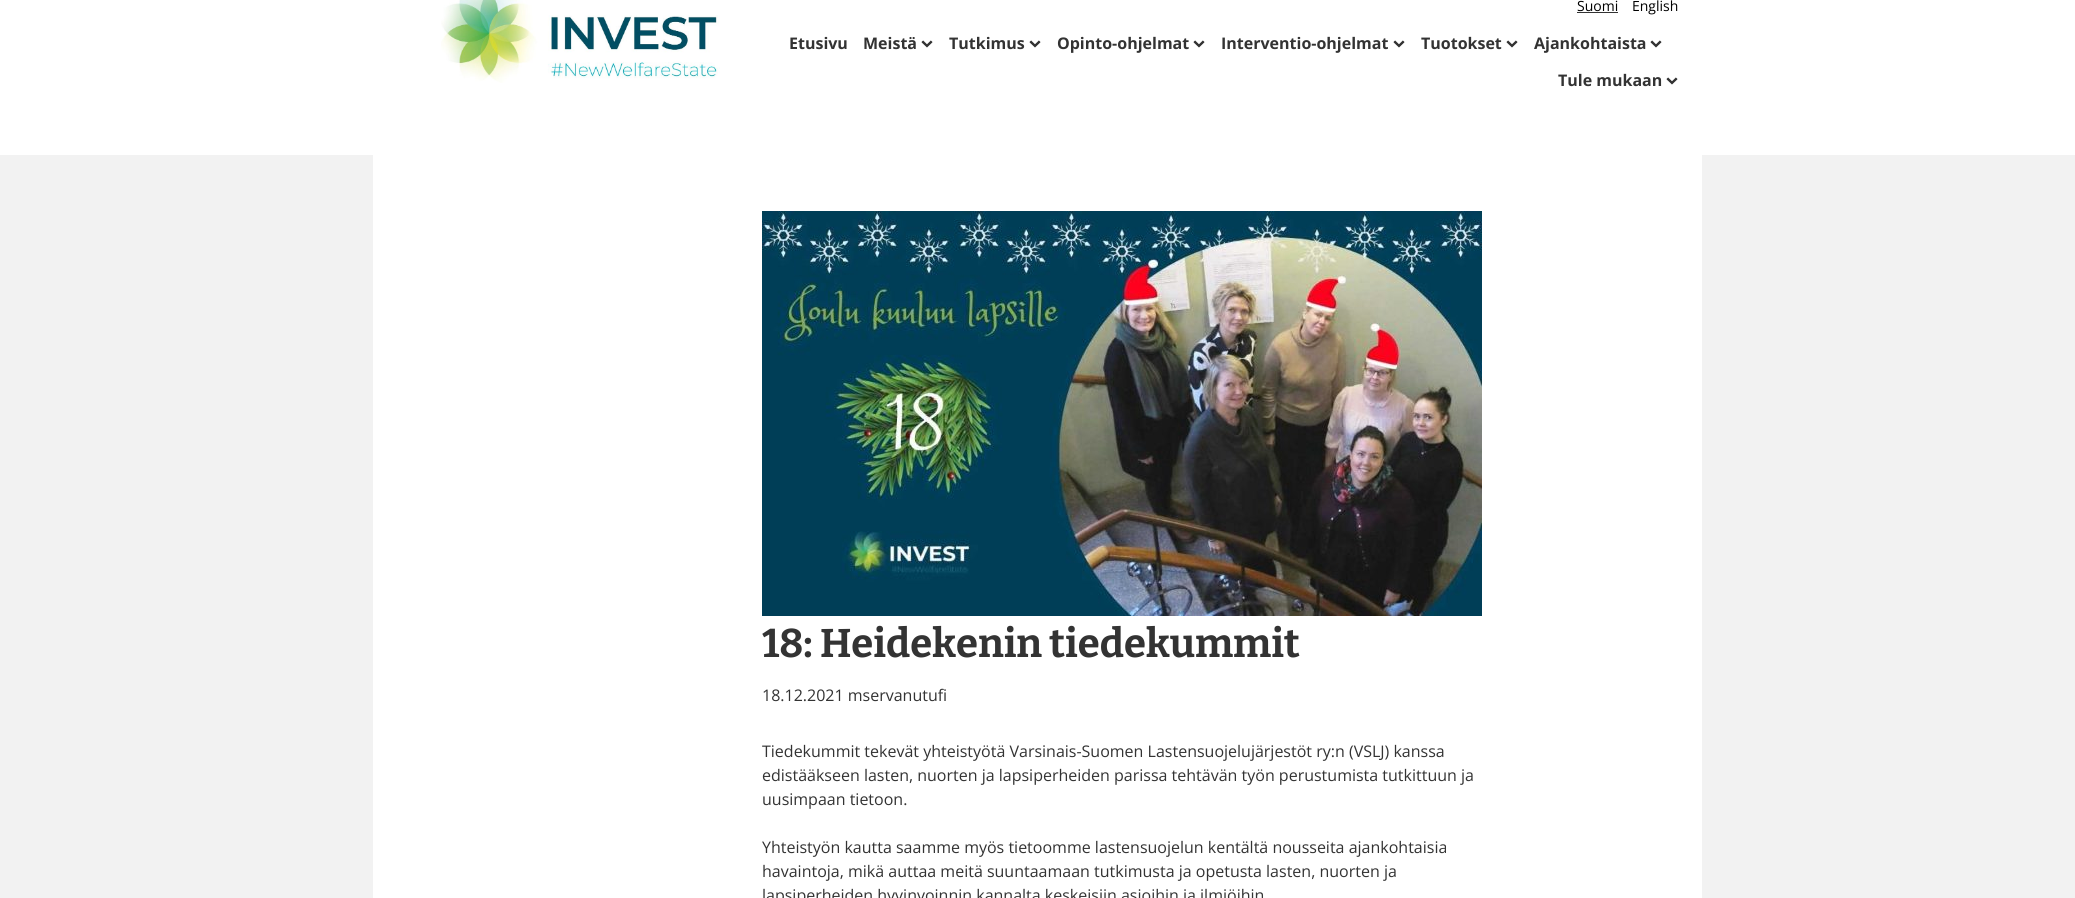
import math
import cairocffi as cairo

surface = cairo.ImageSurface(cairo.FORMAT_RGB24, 2075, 898)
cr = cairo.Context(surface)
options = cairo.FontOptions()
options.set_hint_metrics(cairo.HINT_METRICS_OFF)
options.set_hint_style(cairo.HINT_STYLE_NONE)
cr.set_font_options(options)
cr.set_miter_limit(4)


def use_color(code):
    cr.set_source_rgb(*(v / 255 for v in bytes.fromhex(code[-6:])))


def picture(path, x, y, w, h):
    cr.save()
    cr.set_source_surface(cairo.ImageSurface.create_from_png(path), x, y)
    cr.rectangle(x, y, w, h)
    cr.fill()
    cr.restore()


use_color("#ffffff")
cr.paint()
picture("img1.png", 441, 0, 279, 83)
cr.select_font_face("Open Sans")
cr.set_font_size(14)
use_color("#000000")
cr.move_to(1577, 11)
cr.show_text("Suomi")
use_color("#333333")
cr.rectangle(1577, 12, 41, 1)
cr.fill()
use_color("#000000")
cr.move_to(1632, 11)
cr.show_text("English")
cr.select_font_face("Open Sans", cairo.FONT_SLANT_NORMAL, cairo.FONT_WEIGHT_BOLD)
cr.set_font_size(16)
use_color("#333333")
cr.move_to(789, 49)
cr.show_text("Etusivu")
cr.move_to(863, 49)
cr.show_text("Meistä")
picture("img2.png", 921, 40, 12, 8)
cr.move_to(949, 49)
cr.show_text("Tutkimus")
picture("img2.png", 1029, 40, 12, 8)
cr.move_to(1057, 49)
cr.show_text("Opinto-ohjelmat")
picture("img2.png", 1193, 40, 12, 8)
cr.move_to(1221, 49)
cr.show_text("Interventio-ohjelmat")
picture("img2.png", 1393, 40, 12, 8)
cr.move_to(1421, 49)
cr.show_text("Tuotokset")
picture("img2.png", 1506, 40, 12, 8)
cr.move_to(1534, 49)
cr.show_text("Ajankohtaista")
picture("img2.png", 1650, 40, 12, 8)
cr.move_to(1558, 86)
cr.show_text("Tule mukaan")
picture("img2.png", 1666, 77, 12, 8)
use_color("#f2f2f2")
cr.rectangle(0, 155, 2075, 743)
cr.fill()
use_color("#ffffff")
cr.rectangle(373, 155, 1329, 743)
cr.fill()
picture("img3.png", 762, 211, 720, 405)
cr.select_font_face("Bitter Thin")
cr.set_font_size(40)
use_color("#333333")
cr.move_to(762, 657)
cr.show_text("18: Heidekenin tiedekummit")
cr.select_font_face("Open Sans")
cr.set_font_size(16)
cr.move_to(762, 701)
cr.show_text("18.12.2021 mservanutufi")
cr.move_to(762, 757)
cr.show_text("Tiedekummit tekevät yhteistyötä Varsinais-Suomen Lastensuojelujärjestöt ry:n (VSLJ) kanssa")
cr.move_to(762, 781)
cr.show_text("edistääkseen lasten, nuorten ja lapsiperheiden parissa tehtävän työn perustumista tutkittuun ja")
cr.move_to(762, 805)
cr.show_text("uusimpaan tietoon.")
cr.move_to(762, 853)
cr.show_text("Yhteistyön kautta saamme myös tietoomme lastensuojelun kentältä nousseita ajankohtaisia")
cr.move_to(762, 877)
cr.show_text("havaintoja, mikä auttaa meitä suuntaamaan tutkimusta ja opetusta lasten, nuorten ja")
cr.move_to(762, 901)
cr.show_text("lapsiperheiden hyvinvoinnin kannalta keskeisiin asioihin ja ilmiöihin")
surface.write_to_png("result.png")
